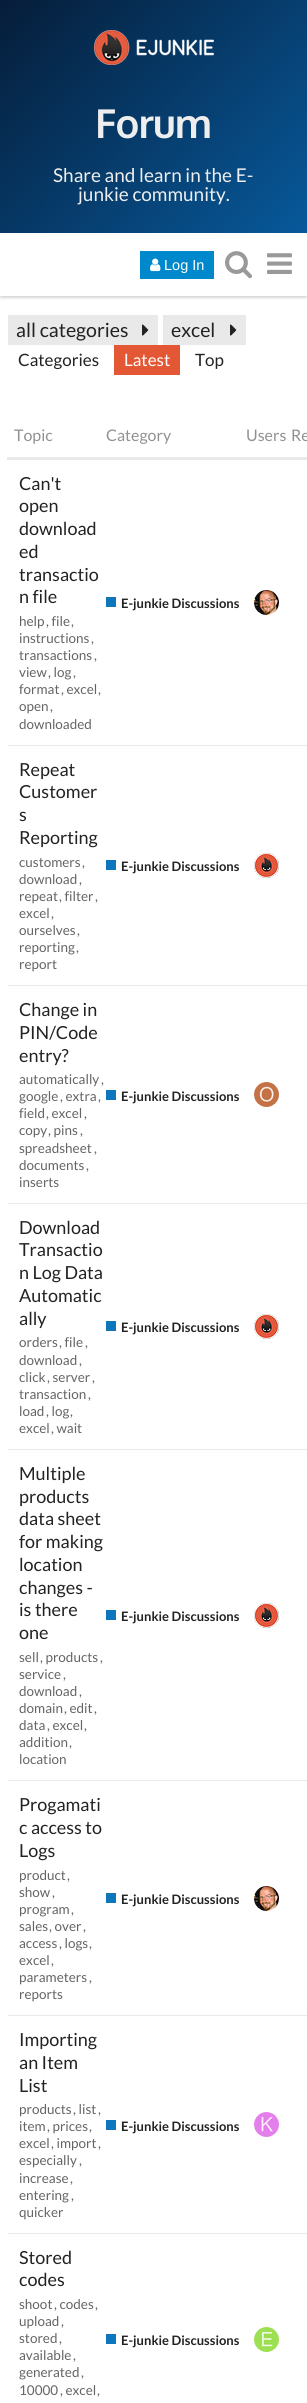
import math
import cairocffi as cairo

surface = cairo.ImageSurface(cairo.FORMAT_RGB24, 307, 2403)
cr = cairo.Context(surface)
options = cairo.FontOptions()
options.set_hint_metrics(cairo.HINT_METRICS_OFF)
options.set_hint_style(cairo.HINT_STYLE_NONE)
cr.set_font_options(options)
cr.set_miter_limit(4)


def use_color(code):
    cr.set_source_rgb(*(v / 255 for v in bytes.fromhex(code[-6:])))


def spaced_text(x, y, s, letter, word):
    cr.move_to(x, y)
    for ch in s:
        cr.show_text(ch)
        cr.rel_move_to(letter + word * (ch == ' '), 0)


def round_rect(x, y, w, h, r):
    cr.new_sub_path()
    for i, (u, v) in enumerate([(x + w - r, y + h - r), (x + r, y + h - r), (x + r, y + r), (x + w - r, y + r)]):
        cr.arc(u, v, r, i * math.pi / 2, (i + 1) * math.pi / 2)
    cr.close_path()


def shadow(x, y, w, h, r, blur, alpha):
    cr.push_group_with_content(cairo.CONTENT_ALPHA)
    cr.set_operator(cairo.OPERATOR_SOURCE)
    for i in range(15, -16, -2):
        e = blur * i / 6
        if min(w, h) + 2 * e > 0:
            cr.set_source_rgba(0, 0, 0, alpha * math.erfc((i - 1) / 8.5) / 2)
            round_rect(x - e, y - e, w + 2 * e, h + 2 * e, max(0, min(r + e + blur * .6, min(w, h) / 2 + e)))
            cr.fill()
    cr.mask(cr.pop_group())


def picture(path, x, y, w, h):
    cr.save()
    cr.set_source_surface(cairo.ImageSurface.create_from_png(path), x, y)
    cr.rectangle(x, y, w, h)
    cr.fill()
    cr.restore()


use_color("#ffffff")
cr.paint()
gradient = cairo.LinearGradient(18, -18, 289, 252)
gradient.add_color_stop_rgba(0, 0.024, 0.114, 0.224, 1)
gradient.add_color_stop_rgba(1, 0.027, 0.349, 0.608, 1)
cr.set_source(gradient)
cr.rectangle(0, 0, 307, 233)
cr.fill()
picture("img1.png", 94, 30, 120, 35)
cr.select_font_face("Oxygen", cairo.FONT_SLANT_NORMAL, cairo.FONT_WEIGHT_BOLD)
cr.set_font_size(40)
use_color("#eeeeee")
spaced_text(95, 138, "Forum", -1, 0)
cr.select_font_face("Lato")
cr.set_font_size(19)
cr.move_to(53, 182)
cr.show_text("Share and learn in the E-")
cr.move_to(78, 201)
cr.show_text("junkie community.")
cr.save()
cr.rectangle(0, 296, 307, 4)
cr.clip()
use_color("#000000")
shadow(1, 236, 305, 61, 0, 2, 0.25)
cr.restore()
use_color("#0088cc")
cr.rectangle(140, 251, 74, 28)
cr.fill()
picture("img2.png", 150, 258, 11, 14)
cr.select_font_face("Liberation Sans")
cr.set_font_size(14.5)
use_color("#ffffff")
cr.move_to(164, 270)
cr.show_text("Log In")
picture("img3.png", 225, 251, 27, 28)
picture("img4.png", 267, 253, 25, 21)
use_color("#e9e9e9")
cr.rectangle(8, 315, 150, 30)
cr.fill()
cr.select_font_face("Lato")
cr.set_font_size(19.5)
use_color("#222222")
cr.move_to(16, 337)
cr.show_text("all categories")
picture("img5.png", 142, 324, 7, 12)
use_color("#e9e9e9")
cr.rectangle(163, 315, 83, 30)
cr.fill()
use_color("#222222")
cr.move_to(171, 337)
cr.show_text("excel")
picture("img5.png", 230, 324, 7, 12)
cr.set_font_size(17)
cr.move_to(18, 366)
cr.show_text("Categories")
use_color("#e45735")
cr.rectangle(114, 345, 66, 30)
cr.fill()
use_color("#ffffff")
cr.move_to(124, 366)
cr.show_text("Latest")
use_color("#222222")
cr.move_to(195, 366)
cr.show_text("Top")
cr.set_font_size(16)
use_color("#919191")
cr.move_to(14, 441)
cr.show_text("Topic")
cr.move_to(106, 441)
cr.show_text("Category")
cr.move_to(246, 441)
cr.show_text("Users")
cr.move_to(291, 441)
cr.show_text("Re")
use_color("#e9e9e9")
cr.rectangle(8, 745, 299, 1)
cr.fill()
cr.rectangle(7, 457, 300, 3)
cr.fill()
cr.set_font_size(18)
use_color("#222222")
cr.move_to(19, 490)
cr.show_text("Can't")
cr.move_to(19, 512)
cr.show_text("open")
cr.move_to(19, 535)
cr.show_text("download")
cr.move_to(19, 558)
cr.show_text("ed")
cr.move_to(19, 581)
cr.show_text("transactio")
cr.move_to(19, 603)
cr.show_text("n file")
cr.set_font_size(13.5)
use_color("#646464")
cr.move_to(19, 626)
cr.show_text("help")
cr.move_to(46, 626)
cr.show_text(", file")
cr.move_to(71, 626)
cr.show_text(",")
cr.move_to(19, 643)
cr.show_text("instructions")
cr.move_to(91, 643)
cr.show_text(",")
cr.move_to(19, 660)
cr.show_text("transactions")
cr.move_to(94, 660)
cr.show_text(",")
cr.move_to(19, 677)
cr.show_text("view")
cr.move_to(48, 677)
cr.show_text(", log")
cr.move_to(73, 677)
cr.show_text(",")
cr.move_to(19, 694)
cr.show_text("format")
cr.move_to(61, 694)
cr.show_text(", excel")
cr.move_to(98, 694)
cr.show_text(",")
cr.move_to(19, 711)
cr.show_text("open")
cr.move_to(50, 711)
cr.show_text(",")
cr.move_to(19, 729)
cr.show_text("downloaded")
use_color("#0e76bd")
cr.rectangle(106, 597, 10, 10)
cr.fill()
cr.select_font_face("Lato", cairo.FONT_SLANT_NORMAL, cairo.FONT_WEIGHT_BOLD)
cr.set_font_size(13)
use_color("#222222")
cr.move_to(121, 608)
cr.show_text("E-junkie Discussions")
picture("img6.png", 254, 590, 25, 25)
use_color("#e9e9e9")
cr.rectangle(8, 985, 299, 1)
cr.fill()
cr.select_font_face("Lato")
cr.set_font_size(18)
use_color("#222222")
cr.move_to(19, 776)
cr.show_text("Repeat")
cr.move_to(19, 798)
cr.show_text("Customer")
cr.move_to(19, 821)
cr.show_text("s")
cr.move_to(19, 844)
cr.show_text("Reporting")
cr.set_font_size(13.5)
use_color("#646464")
cr.move_to(19, 867)
cr.show_text("customers")
cr.move_to(82, 867)
cr.show_text(",")
cr.move_to(19, 884)
cr.show_text("download")
cr.move_to(79, 884)
cr.show_text(",")
cr.move_to(19, 901)
cr.show_text("repeat")
cr.move_to(59, 901)
cr.show_text(", filter")
cr.move_to(95, 901)
cr.show_text(",")
cr.move_to(19, 918)
cr.show_text("excel")
cr.move_to(51, 918)
cr.show_text(",")
cr.move_to(19, 935)
cr.show_text("ourselves")
cr.move_to(77, 935)
cr.show_text(",")
cr.move_to(19, 952)
cr.show_text("reporting")
cr.move_to(76, 952)
cr.show_text(",")
cr.move_to(19, 969)
cr.show_text("report")
use_color("#0e76bd")
cr.rectangle(106, 860, 10, 10)
cr.fill()
cr.select_font_face("Lato", cairo.FONT_SLANT_NORMAL, cairo.FONT_WEIGHT_BOLD)
cr.set_font_size(13)
use_color("#222222")
cr.move_to(121, 871)
cr.show_text("E-junkie Discussions")
picture("img7.png", 254, 853, 25, 25)
use_color("#e9e9e9")
cr.rectangle(8, 1203, 299, 1)
cr.fill()
cr.select_font_face("Lato")
cr.set_font_size(18)
use_color("#222222")
cr.move_to(19, 1016)
cr.show_text("Change in")
cr.move_to(19, 1039)
cr.show_text("PIN/Code")
cr.move_to(19, 1062)
cr.show_text("entry?")
cr.set_font_size(13.5)
use_color("#646464")
cr.move_to(19, 1084)
cr.show_text("automatically")
cr.move_to(101, 1084)
cr.show_text(",")
cr.move_to(19, 1101)
cr.show_text("google")
cr.move_to(60, 1101)
cr.show_text(", extra")
cr.move_to(98, 1101)
cr.show_text(",")
cr.move_to(19, 1118)
cr.show_text("field")
cr.move_to(46, 1118)
cr.show_text(", excel")
cr.move_to(84, 1118)
cr.show_text(",")
cr.move_to(19, 1135)
cr.show_text("copy")
cr.move_to(48, 1135)
cr.show_text(", pins")
cr.move_to(80, 1135)
cr.show_text(",")
cr.move_to(19, 1153)
cr.show_text("spreadsheet")
cr.move_to(94, 1153)
cr.show_text(",")
cr.move_to(19, 1170)
cr.show_text("documents")
cr.move_to(86, 1170)
cr.show_text(",")
cr.move_to(19, 1187)
cr.show_text("inserts")
use_color("#0e76bd")
cr.rectangle(106, 1090, 10, 10)
cr.fill()
cr.select_font_face("Lato", cairo.FONT_SLANT_NORMAL, cairo.FONT_WEIGHT_BOLD)
cr.set_font_size(13)
use_color("#222222")
cr.move_to(121, 1101)
cr.show_text("E-junkie Discussions")
picture("img8.png", 254, 1082, 25, 25)
use_color("#e9e9e9")
cr.rectangle(8, 1449, 299, 1)
cr.fill()
cr.select_font_face("Lato")
cr.set_font_size(18)
use_color("#222222")
cr.move_to(19, 1234)
cr.show_text("Download")
cr.move_to(19, 1256)
cr.show_text("Transactio")
cr.move_to(19, 1279)
cr.show_text("n Log Data")
cr.move_to(19, 1302)
cr.show_text("Automatic")
cr.move_to(19, 1325)
cr.show_text("ally")
cr.set_font_size(13.5)
use_color("#646464")
cr.move_to(19, 1347)
cr.show_text("orders")
cr.move_to(59, 1347)
cr.show_text(", file")
cr.move_to(85, 1347)
cr.show_text(",")
cr.move_to(19, 1365)
cr.show_text("download")
cr.move_to(79, 1365)
cr.show_text(",")
cr.move_to(19, 1382)
cr.show_text("click")
cr.move_to(47, 1382)
cr.show_text(", server")
cr.move_to(92, 1382)
cr.show_text(",")
cr.move_to(19, 1399)
cr.show_text("transaction")
cr.move_to(88, 1399)
cr.show_text(",")
cr.move_to(19, 1416)
cr.show_text("load")
cr.move_to(46, 1416)
cr.show_text(", log")
cr.move_to(70, 1416)
cr.show_text(",")
cr.move_to(19, 1433)
cr.show_text("excel")
cr.move_to(51, 1433)
cr.show_text(", wait")
use_color("#0e76bd")
cr.rectangle(106, 1321, 10, 10)
cr.fill()
cr.select_font_face("Lato", cairo.FONT_SLANT_NORMAL, cairo.FONT_WEIGHT_BOLD)
cr.set_font_size(13)
use_color("#222222")
cr.move_to(121, 1332)
cr.show_text("E-junkie Discussions")
picture("img7.png", 254, 1314, 25, 25)
use_color("#e9e9e9")
cr.rectangle(8, 1780, 299, 1)
cr.fill()
cr.select_font_face("Lato")
cr.set_font_size(18)
use_color("#222222")
cr.move_to(19, 1480)
cr.show_text("Multiple")
cr.move_to(19, 1503)
cr.show_text("products")
cr.move_to(19, 1525)
cr.show_text("data sheet")
cr.move_to(19, 1548)
cr.show_text("for making")
cr.move_to(19, 1571)
cr.show_text("location")
cr.move_to(19, 1594)
cr.show_text("changes -")
cr.move_to(19, 1616)
cr.show_text("is there")
cr.move_to(19, 1639)
cr.show_text("one")
cr.set_font_size(13.5)
use_color("#646464")
cr.move_to(19, 1662)
cr.show_text("sell")
cr.move_to(40, 1662)
cr.show_text(", products")
cr.move_to(100, 1662)
cr.show_text(",")
cr.move_to(19, 1679)
cr.show_text("service")
cr.move_to(63, 1679)
cr.show_text(",")
cr.move_to(19, 1696)
cr.show_text("download")
cr.move_to(79, 1696)
cr.show_text(",")
cr.move_to(19, 1713)
cr.show_text("domain")
cr.move_to(64, 1713)
cr.show_text(", edit")
cr.move_to(94, 1713)
cr.show_text(",")
cr.move_to(19, 1730)
cr.show_text("data")
cr.move_to(47, 1730)
cr.show_text(", excel")
cr.move_to(84, 1730)
cr.show_text(",")
cr.move_to(19, 1747)
cr.show_text("addition")
cr.move_to(69, 1747)
cr.show_text(",")
cr.move_to(19, 1764)
cr.show_text("location")
use_color("#0e76bd")
cr.rectangle(106, 1610, 10, 10)
cr.fill()
cr.select_font_face("Lato", cairo.FONT_SLANT_NORMAL, cairo.FONT_WEIGHT_BOLD)
cr.set_font_size(13)
use_color("#222222")
cr.move_to(121, 1621)
cr.show_text("E-junkie Discussions")
picture("img7.png", 254, 1603, 25, 25)
use_color("#e9e9e9")
cr.rectangle(8, 2015, 299, 1)
cr.fill()
cr.select_font_face("Lato")
cr.set_font_size(18)
use_color("#222222")
cr.move_to(19, 1811)
cr.show_text("Progamati")
cr.move_to(19, 1834)
cr.show_text("c access to")
cr.move_to(19, 1857)
cr.show_text("Logs")
cr.set_font_size(13.5)
use_color("#646464")
cr.move_to(19, 1880)
cr.show_text("product")
cr.move_to(67, 1880)
cr.show_text(",")
cr.move_to(19, 1897)
cr.show_text("show")
cr.move_to(52, 1897)
cr.show_text(",")
cr.move_to(19, 1914)
cr.show_text("program")
cr.move_to(71, 1914)
cr.show_text(",")
cr.move_to(19, 1931)
cr.show_text("sales")
cr.move_to(49, 1931)
cr.show_text(", over")
cr.move_to(83, 1931)
cr.show_text(",")
cr.move_to(19, 1948)
cr.show_text("access")
cr.move_to(59, 1948)
cr.show_text(", logs")
cr.move_to(89, 1948)
cr.show_text(",")
cr.move_to(19, 1965)
cr.show_text("excel")
cr.move_to(51, 1965)
cr.show_text(",")
cr.move_to(19, 1982)
cr.show_text("parameters")
cr.move_to(89, 1982)
cr.show_text(",")
cr.move_to(19, 1999)
cr.show_text("reports")
use_color("#0e76bd")
cr.rectangle(106, 1893, 10, 10)
cr.fill()
cr.select_font_face("Lato", cairo.FONT_SLANT_NORMAL, cairo.FONT_WEIGHT_BOLD)
cr.set_font_size(13)
use_color("#222222")
cr.move_to(121, 1904)
cr.show_text("E-junkie Discussions")
picture("img6.png", 254, 1886, 25, 25)
use_color("#e9e9e9")
cr.rectangle(8, 2233, 299, 1)
cr.fill()
cr.select_font_face("Lato")
cr.set_font_size(18)
use_color("#222222")
cr.move_to(19, 2046)
cr.show_text("Importing")
cr.move_to(19, 2069)
cr.show_text("an Item")
cr.move_to(19, 2092)
cr.show_text("List")
cr.set_font_size(13.5)
use_color("#646464")
cr.move_to(19, 2114)
cr.show_text("products")
cr.move_to(73, 2114)
cr.show_text(", list")
cr.move_to(98, 2114)
cr.show_text(",")
cr.move_to(19, 2131)
cr.show_text("item")
cr.move_to(47, 2131)
cr.show_text(", prices")
cr.move_to(89, 2131)
cr.show_text(",")
cr.move_to(19, 2148)
cr.show_text("excel")
cr.move_to(51, 2148)
cr.show_text(", import")
cr.move_to(98, 2148)
cr.show_text(",")
cr.move_to(19, 2165)
cr.show_text("especially")
cr.move_to(79, 2165)
cr.show_text(",")
cr.move_to(19, 2183)
cr.show_text("increase")
cr.move_to(70, 2183)
cr.show_text(",")
cr.move_to(19, 2200)
cr.show_text("entering")
cr.move_to(71, 2200)
cr.show_text(",")
cr.move_to(19, 2217)
cr.show_text("quicker")
use_color("#0e76bd")
cr.rectangle(106, 2120, 10, 10)
cr.fill()
cr.select_font_face("Lato", cairo.FONT_SLANT_NORMAL, cairo.FONT_WEIGHT_BOLD)
cr.set_font_size(13)
use_color("#222222")
cr.move_to(121, 2131)
cr.show_text("E-junkie Discussions")
picture("img9.png", 254, 2112, 25, 25)
cr.select_font_face("Lato")
cr.set_font_size(18)
cr.move_to(19, 2264)
cr.show_text("Stored")
cr.move_to(19, 2286)
cr.show_text("codes")
cr.set_font_size(13.5)
use_color("#646464")
cr.move_to(19, 2309)
cr.show_text("shoot")
cr.move_to(54, 2309)
cr.show_text(", codes")
cr.move_to(95, 2309)
cr.show_text(",")
cr.move_to(19, 2326)
cr.show_text("upload")
cr.move_to(61, 2326)
cr.show_text(",")
cr.move_to(19, 2343)
cr.show_text("stored")
cr.move_to(59, 2343)
cr.show_text(",")
cr.move_to(19, 2360)
cr.show_text("available")
cr.move_to(73, 2360)
cr.show_text(",")
cr.move_to(19, 2377)
cr.show_text("generated")
cr.move_to(81, 2377)
cr.show_text(",")
cr.move_to(19, 2395)
cr.show_text("10000")
cr.move_to(60, 2395)
cr.show_text(", excel")
cr.move_to(97, 2395)
cr.show_text(",")
use_color("#0e76bd")
cr.rectangle(106, 2334, 10, 10)
cr.fill()
cr.select_font_face("Lato", cairo.FONT_SLANT_NORMAL, cairo.FONT_WEIGHT_BOLD)
cr.set_font_size(13)
use_color("#222222")
cr.move_to(121, 2345)
cr.show_text("E-junkie Discussions")
picture("img10.png", 254, 2327, 25, 25)
surface.write_to_png("result.png")
